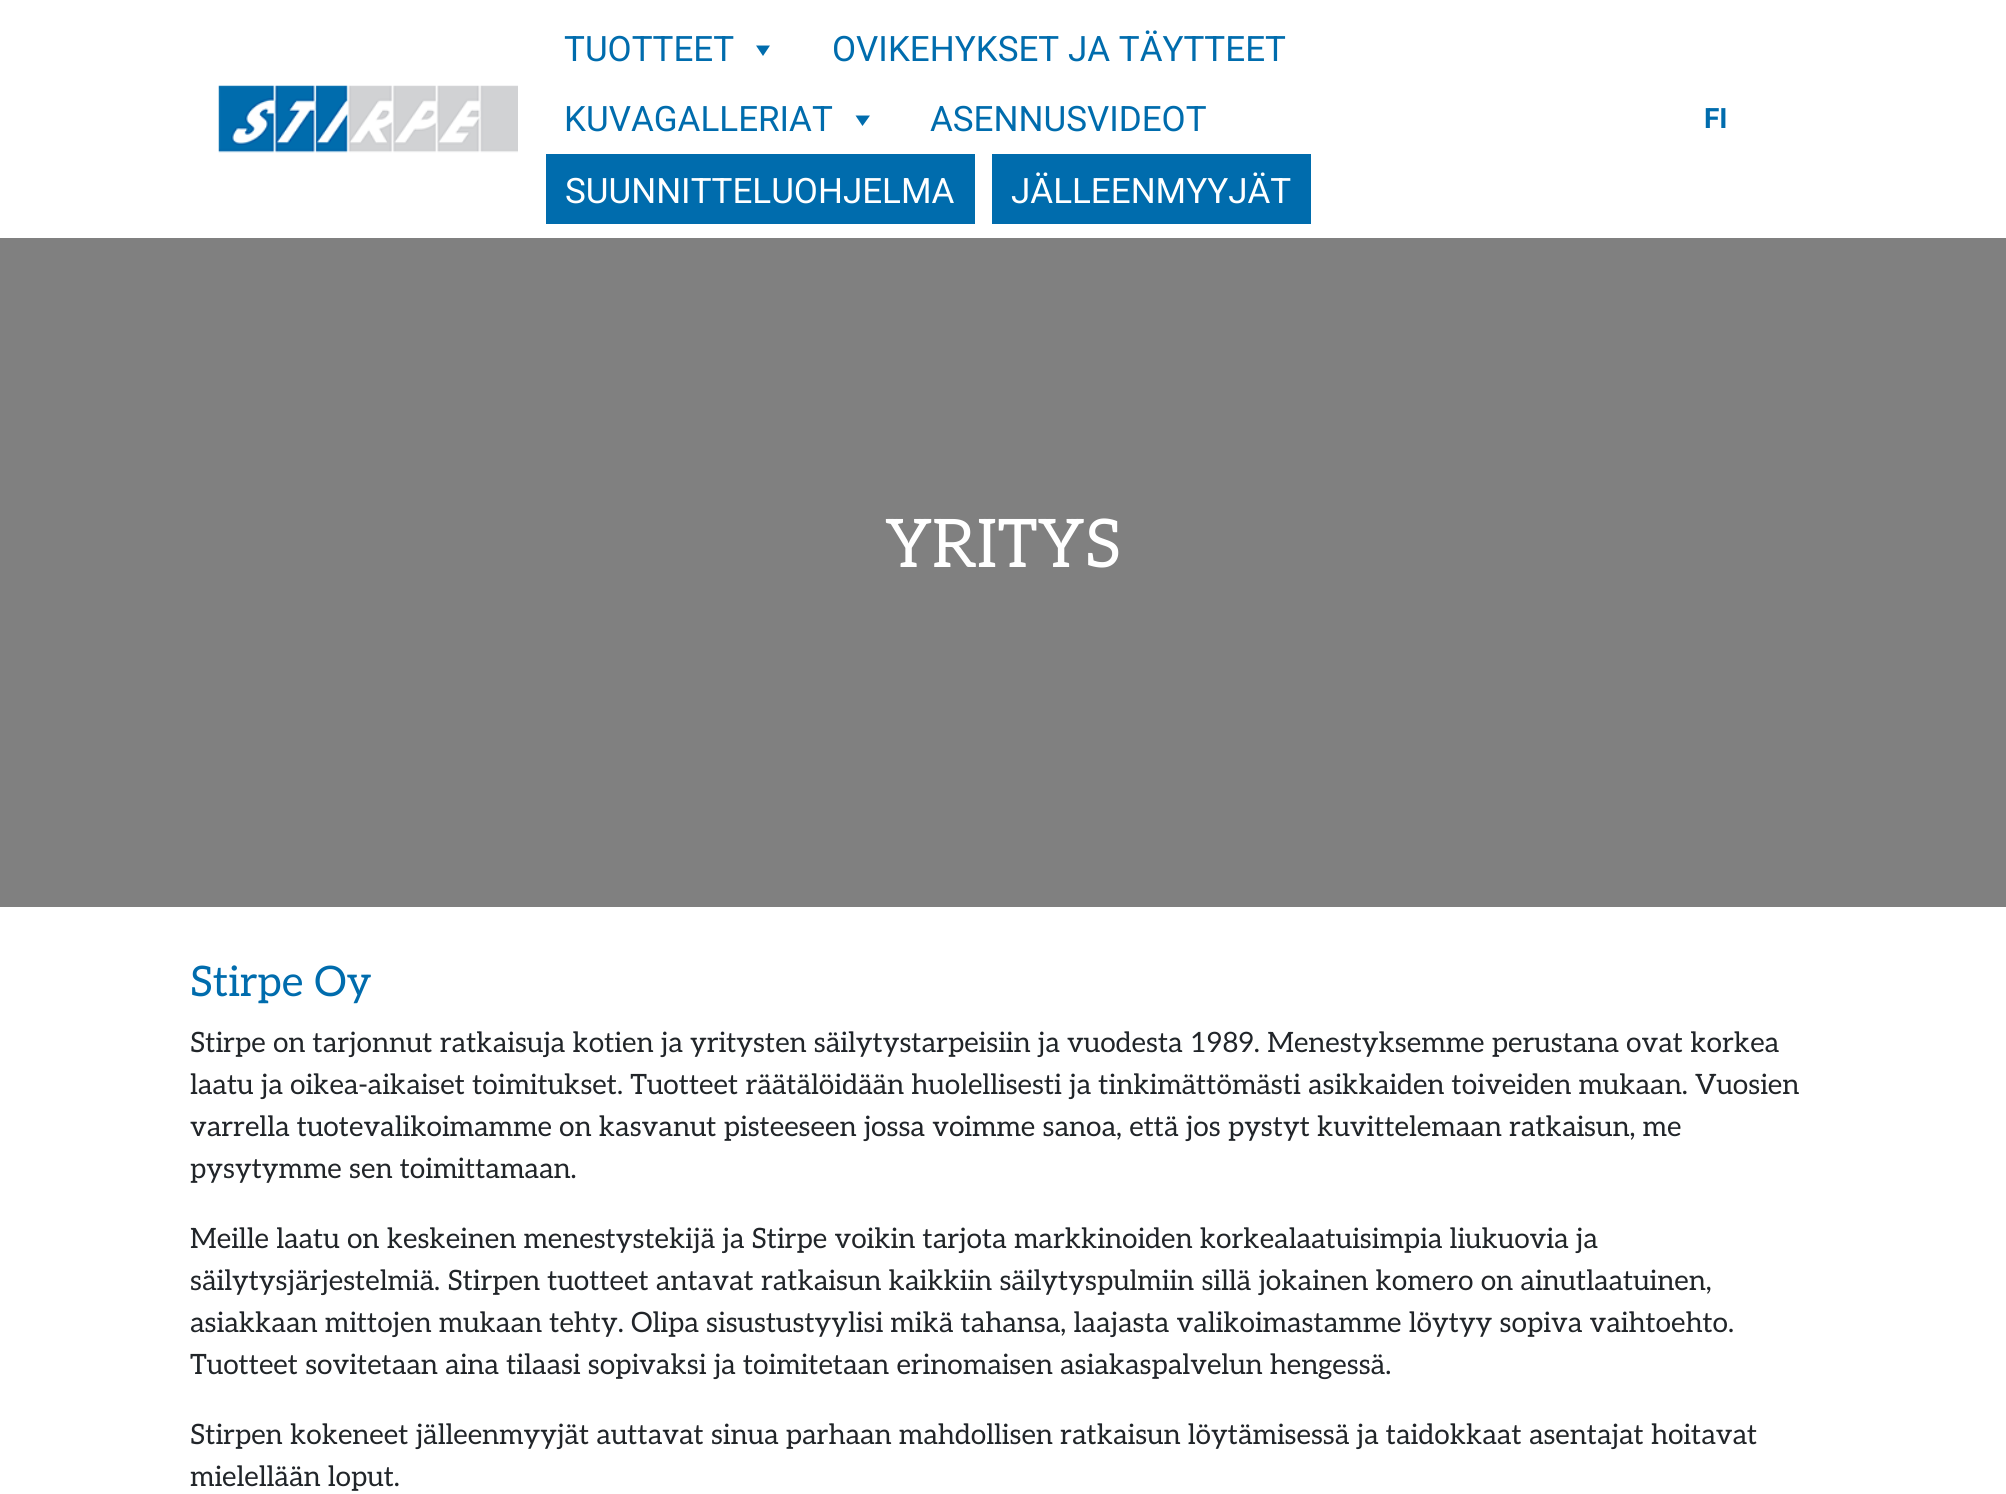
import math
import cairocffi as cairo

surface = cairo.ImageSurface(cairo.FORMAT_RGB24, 2006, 1494)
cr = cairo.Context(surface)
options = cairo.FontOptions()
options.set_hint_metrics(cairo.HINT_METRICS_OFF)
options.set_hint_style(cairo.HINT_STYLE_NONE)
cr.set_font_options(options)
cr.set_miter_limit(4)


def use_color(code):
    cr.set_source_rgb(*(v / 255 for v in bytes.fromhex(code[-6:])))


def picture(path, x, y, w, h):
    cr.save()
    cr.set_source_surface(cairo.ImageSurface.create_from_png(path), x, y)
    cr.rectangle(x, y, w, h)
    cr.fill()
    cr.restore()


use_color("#ffffff")
cr.paint()
picture("img1.png", 218, 85, 300, 68)
cr.select_font_face("Roboto")
cr.set_font_size(35)
use_color("#006cad")
cr.move_to(564, 61)
cr.show_text("TUOTTEET")
cr.new_path()
cr.move_to(770, 45.5)
cr.line_to(763, 56)
cr.line_to(756, 45.5)
cr.close_path()
cr.fill()
cr.move_to(832, 61)
cr.show_text("OVIKEHYKSET JA TÄYTTEET")
cr.move_to(564, 131)
cr.show_text("KUVAGALLERIAT")
cr.new_path()
cr.move_to(870, 115.5)
cr.line_to(862.5, 126)
cr.line_to(855.5, 115.5)
cr.close_path()
cr.fill()
cr.move_to(930, 131)
cr.show_text("ASENNUSVIDEOT")
cr.rectangle(546, 154, 429, 70)
cr.fill()
use_color("#ffffff")
cr.move_to(565, 203)
cr.show_text("SUUNNITTELUOHJELMA")
use_color("#006cad")
cr.rectangle(992, 154, 319, 70)
cr.fill()
use_color("#ffffff")
cr.move_to(1011, 203)
cr.show_text("JÄLLEENMYYJÄT")
cr.select_font_face("Roboto", cairo.FONT_SLANT_NORMAL, cairo.FONT_WEIGHT_BOLD)
cr.set_font_size(28)
use_color("#006cad")
cr.move_to(1704, 128)
cr.show_text("FI")
use_color("#808080")
cr.rectangle(0, 238, 2006, 669)
cr.fill()
cr.select_font_face("Aleo")
cr.set_font_size(67)
use_color("#ffffff")
cr.move_to(885, 567)
cr.show_text("YRITYS")
cr.set_font_size(42)
use_color("#006cad")
cr.move_to(190, 996)
cr.show_text("Stirpe Oy")
cr.set_font_size(28)
use_color("#212529")
cr.move_to(190, 1052)
cr.show_text("Stirpe on tarjonnut ratkaisuja kotien ja yritysten säilytystarpeisiin ja vuodesta 1989. Menestyksemme perustana ovat korkea")
cr.move_to(190, 1094)
cr.show_text("laatu ja oikea-aikaiset toimitukset. Tuotteet räätälöidään huolellisesti ja tinkimättömästi asikkaiden toiveiden mukaan. Vuosien")
cr.move_to(190, 1136)
cr.show_text("varrella tuotevalikoimamme on kasvanut pisteeseen jossa voimme sanoa, että jos pystyt kuvittelemaan ratkaisun, me")
cr.move_to(190, 1178)
cr.show_text("pysytymme sen toimittamaan.")
cr.move_to(190, 1248)
cr.show_text("Meille laatu on keskeinen menestystekijä ja Stirpe voikin tarjota markkinoiden korkealaatuisimpia liukuovia ja")
cr.move_to(190, 1290)
cr.show_text("säilytysjärjestelmiä. Stirpen tuotteet antavat ratkaisun kaikkiin säilytyspulmiin sillä jokainen komero on ainutlaatuinen,")
cr.move_to(190, 1332)
cr.show_text("asiakkaan mittojen mukaan tehty. Olipa sisustustyylisi mikä tahansa, laajasta valikoimastamme löytyy sopiva vaihtoehto.")
cr.move_to(190, 1374)
cr.show_text("Tuotteet sovitetaan aina tilaasi sopivaksi ja toimitetaan erinomaisen asiakaspalvelun hengessä.")
cr.move_to(190, 1444)
cr.show_text("Stirpen kokeneet jälleenmyyjät auttavat sinua parhaan mahdollisen ratkaisun löytämisessä ja taidokkaat asentajat hoitavat")
cr.move_to(190, 1486)
cr.show_text("mielellään loput.")
surface.write_to_png("result.png")
